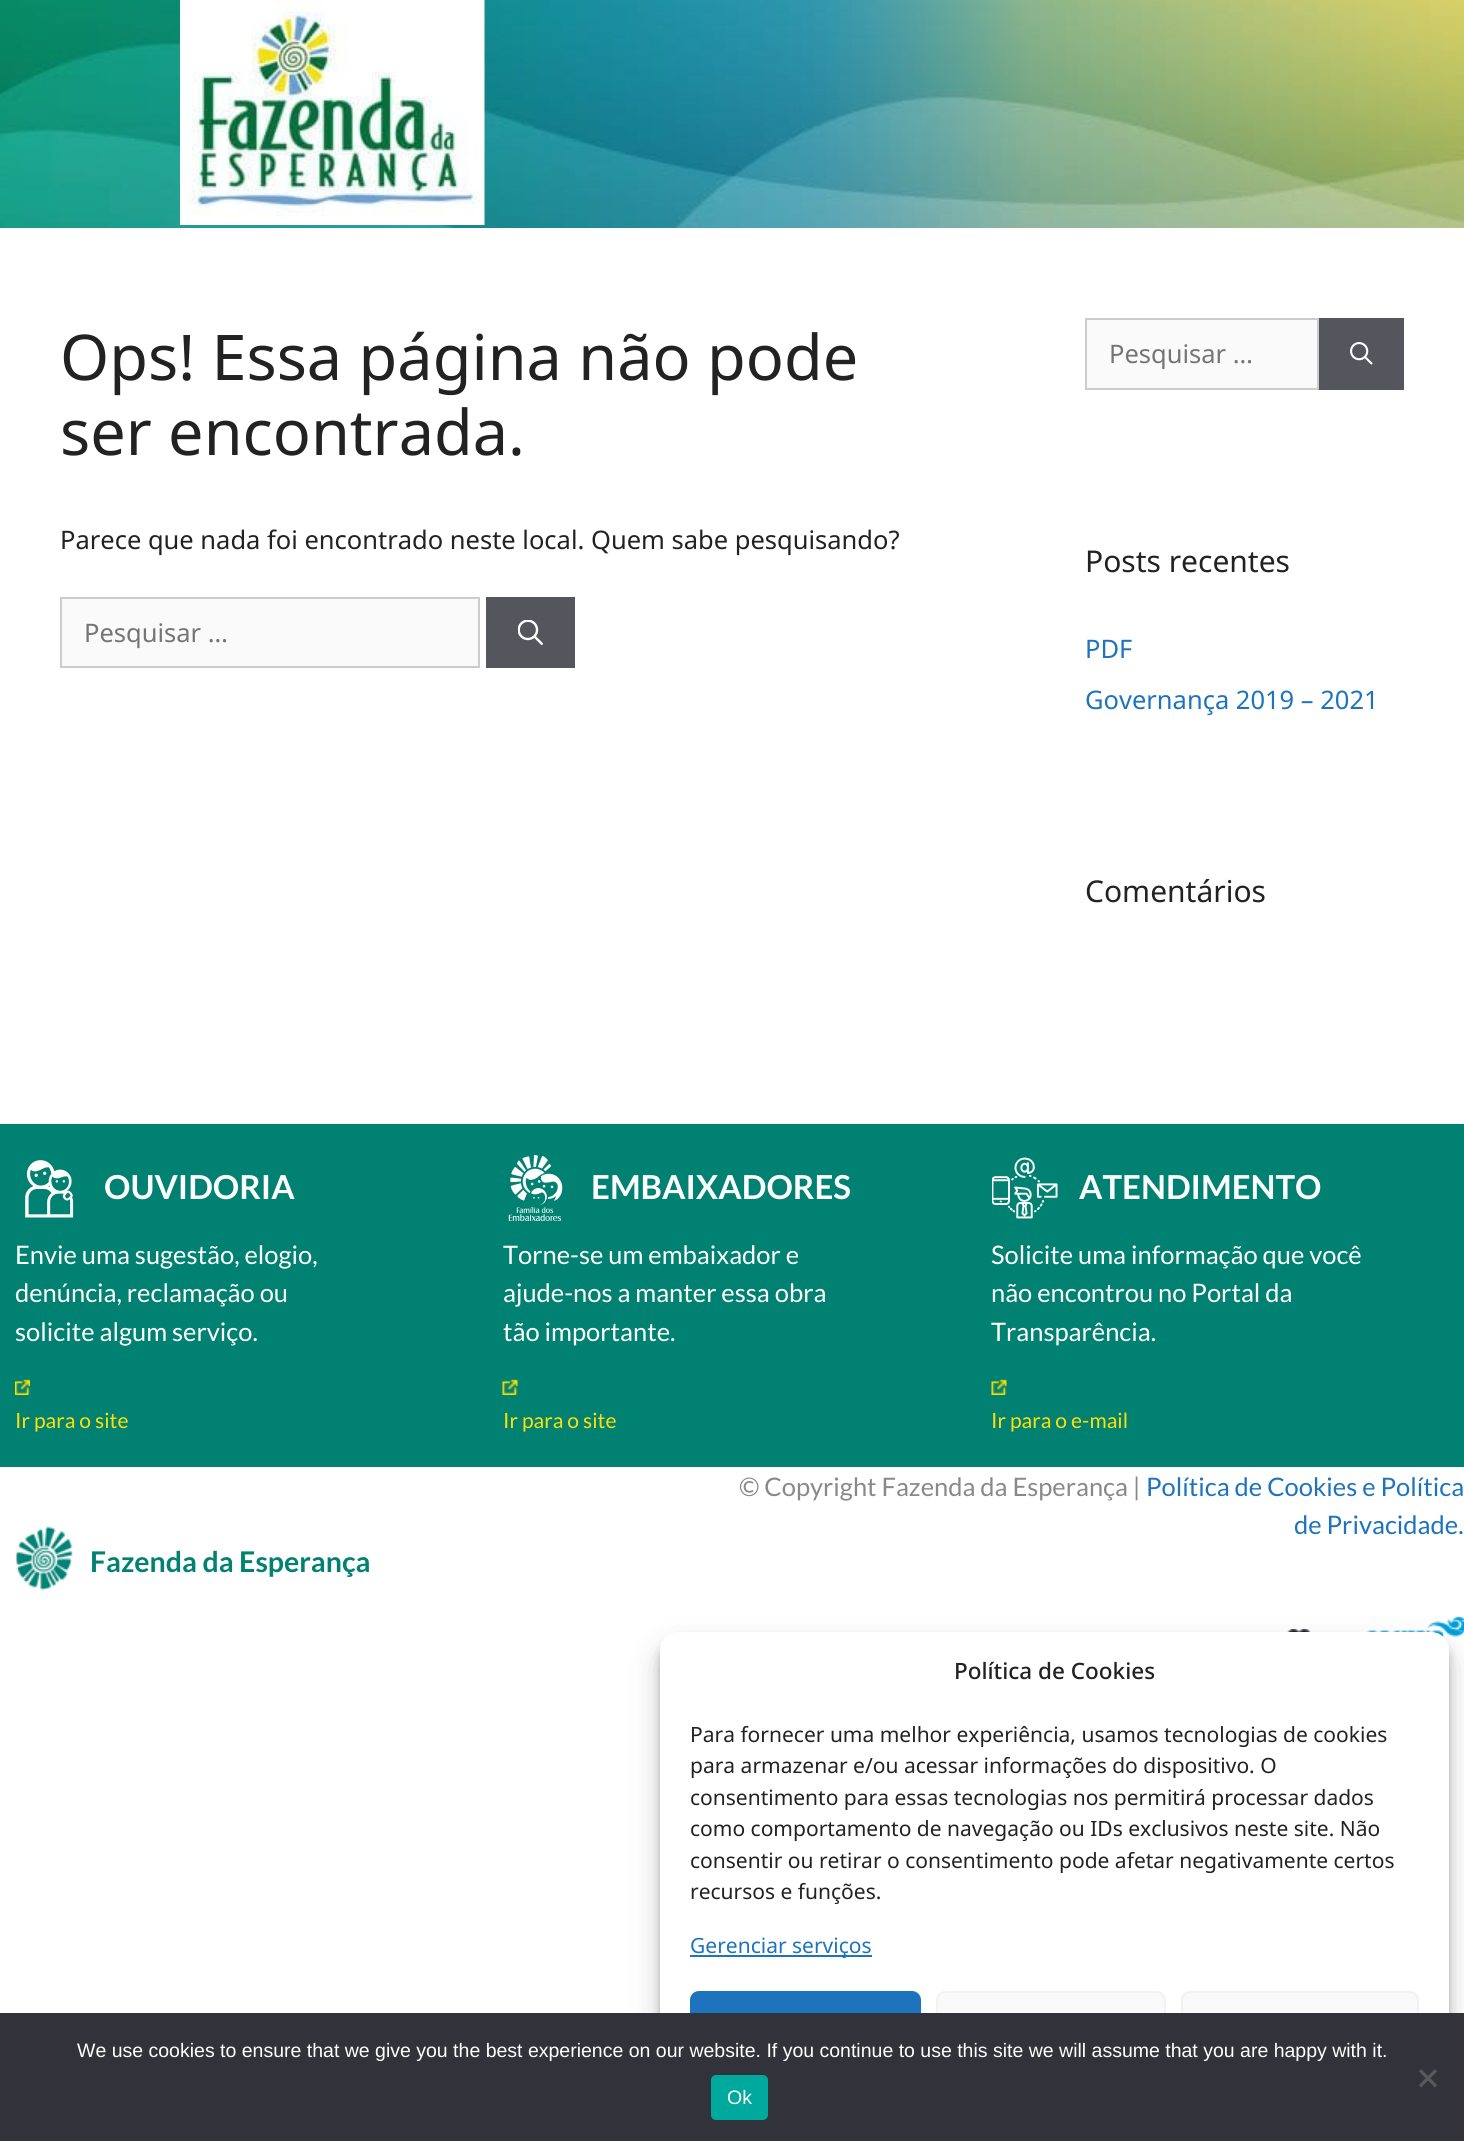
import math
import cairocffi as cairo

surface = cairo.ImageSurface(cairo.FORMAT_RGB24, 1464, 2141)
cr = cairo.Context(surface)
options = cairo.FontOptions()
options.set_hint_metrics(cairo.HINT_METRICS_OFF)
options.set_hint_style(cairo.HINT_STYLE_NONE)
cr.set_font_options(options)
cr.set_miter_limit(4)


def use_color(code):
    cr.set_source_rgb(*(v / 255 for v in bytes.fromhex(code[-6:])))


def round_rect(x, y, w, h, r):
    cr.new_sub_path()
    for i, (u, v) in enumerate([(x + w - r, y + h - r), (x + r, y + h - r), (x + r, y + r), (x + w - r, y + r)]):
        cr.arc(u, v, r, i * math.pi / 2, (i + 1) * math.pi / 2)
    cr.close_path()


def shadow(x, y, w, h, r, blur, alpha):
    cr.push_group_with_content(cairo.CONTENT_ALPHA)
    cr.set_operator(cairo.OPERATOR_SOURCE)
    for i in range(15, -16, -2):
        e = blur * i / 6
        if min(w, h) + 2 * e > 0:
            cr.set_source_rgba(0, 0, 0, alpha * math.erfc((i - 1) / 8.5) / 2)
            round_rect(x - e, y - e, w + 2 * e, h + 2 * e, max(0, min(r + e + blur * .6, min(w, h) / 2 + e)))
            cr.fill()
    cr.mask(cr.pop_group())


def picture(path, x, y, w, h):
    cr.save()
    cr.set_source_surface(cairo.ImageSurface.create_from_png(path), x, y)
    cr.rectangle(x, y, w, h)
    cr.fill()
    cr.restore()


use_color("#ffffff")
cr.paint()
picture("img1.png", 0, 0, 1464, 228)
picture("img2.png", 180, 0, 305, 225)
cr.select_font_face("Noto Sans")
cr.set_font_size(63)
use_color("#222222")
cr.move_to(60, 380)
cr.show_text("Ops! Essa página não pode")
cr.move_to(60, 455)
cr.show_text("ser encontrada.")
cr.set_font_size(25.5)
cr.move_to(60, 549)
cr.show_text("Parece que nada foi encontrado neste local. Quem sabe pesquisando?")
use_color("#fafafa")
cr.rectangle(61, 598, 418, 69)
cr.fill_preserve()
use_color("#cccccc")
cr.stroke()
use_color("#757575")
cr.move_to(84, 642)
cr.show_text("Pesquisar …")
use_color("#55555e")
cr.rectangle(486, 597, 89, 71)
cr.fill()
picture("img3.png", 518, 620, 25, 25)
use_color("#fafafa")
cr.rectangle(1086, 319, 232, 70)
cr.fill_preserve()
use_color("#cccccc")
cr.stroke()
use_color("#757575")
cr.move_to(1109, 363)
cr.show_text("Pesquisar …")
use_color("#55555e")
cr.rectangle(1319, 318, 85, 72)
cr.fill()
picture("img4.png", 1350, 342, 23, 23)
cr.set_font_size(30)
use_color("#222222")
cr.move_to(1085, 572)
cr.show_text("Posts recentes")
cr.set_font_size(25.5)
use_color("#1e73be")
cr.move_to(1085, 658)
cr.show_text("PDF")
cr.move_to(1085, 709)
cr.show_text("Governança 2019 – 2021")
cr.set_font_size(30)
use_color("#222222")
cr.move_to(1085, 902)
cr.show_text("Comentários")
use_color("#018172")
cr.rectangle(0, 1124, 1464, 343)
cr.fill()
picture("img5.png", 25, 1160, 49, 58)
cr.select_font_face("Lato", cairo.FONT_SLANT_NORMAL, cairo.FONT_WEIGHT_BOLD)
cr.set_font_size(33)
use_color("#ffffff")
cr.move_to(104, 1199)
cr.show_text("OUVIDORIA")
cr.select_font_face("Lato")
cr.set_font_size(25.5)
cr.move_to(15, 1264)
cr.show_text("Envie uma sugestão, elogio,")
cr.move_to(15, 1302)
cr.show_text("denúncia, reclamação ou")
cr.move_to(15, 1341)
cr.show_text("solicite algum serviço.")
picture("img6.png", 15, 1379, 15, 16)
cr.set_font_size(21)
use_color("#fee009")
cr.move_to(15, 1428)
cr.show_text("Ir para o site")
picture("img7.png", 508, 1155, 55, 66)
cr.select_font_face("Lato", cairo.FONT_SLANT_NORMAL, cairo.FONT_WEIGHT_BOLD)
cr.set_font_size(33)
use_color("#ffffff")
cr.move_to(591, 1199)
cr.show_text("EMBAIXADORES")
cr.select_font_face("Lato")
cr.set_font_size(25.5)
cr.move_to(503, 1264)
cr.show_text("Torne-se um embaixador e")
cr.move_to(503, 1302)
cr.show_text("ajude-nos a manter essa obra")
cr.move_to(503, 1341)
cr.show_text("tão importante.")
picture("img8.png", 502, 1379, 16, 16)
cr.set_font_size(21)
use_color("#fee009")
cr.move_to(503, 1428)
cr.show_text("Ir para o site")
picture("img9.png", 992, 1157, 66, 62)
cr.select_font_face("Lato", cairo.FONT_SLANT_NORMAL, cairo.FONT_WEIGHT_BOLD)
cr.set_font_size(33)
use_color("#ffffff")
cr.move_to(1079, 1199)
cr.show_text("ATENDIMENTO")
cr.select_font_face("Lato")
cr.set_font_size(25.5)
cr.move_to(991, 1264)
cr.show_text("Solicite uma informação que você")
cr.move_to(991, 1302)
cr.show_text("não encontrou no Portal da")
cr.move_to(991, 1341)
cr.show_text("Transparência.")
picture("img8.png", 991, 1379, 16, 16)
cr.set_font_size(21)
use_color("#fee009")
cr.move_to(991, 1428)
cr.show_text("Ir para o e-mail")
cr.set_font_size(25.5)
use_color("#898989")
cr.move_to(739, 1496)
cr.show_text("© Copyright Fazenda da Esperança |")
use_color("#1e73be")
cr.move_to(1146, 1496)
cr.show_text("Política de Cookies e Política")
cr.move_to(1294, 1534)
cr.show_text("de Privacidade.")
picture("img10.png", 1287, 1629, 24, 3)
picture("img11.png", 1366, 1616, 98, 22)
picture("img12.png", 15, 1526, 58, 65)
cr.select_font_face("Lato", cairo.FONT_SLANT_NORMAL, cairo.FONT_WEIGHT_BOLD)
cr.set_font_size(28.5)
use_color("#018172")
cr.move_to(90, 1572)
cr.show_text("Fazenda da Esperança")
use_color("#000000")
shadow(660, 1641, 789, 495, 18, 4.5, 0.23)
shadow(660, 1647, 789, 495, 18, 15, 0.19)
use_color("#ffffff")
round_rect(660, 1632, 789, 495, 18)
cr.fill()
cr.select_font_face("Noto Sans Medium")
cr.set_font_size(22.5)
use_color("#222222")
cr.move_to(954, 1679)
cr.show_text("Política de Cookies")
cr.select_font_face("Noto Sans")
cr.set_font_size(21)
cr.move_to(690, 1742)
cr.show_text("Para fornecer uma melhor experiência, usamos tecnologias de cookies")
cr.move_to(690, 1773)
cr.show_text("para armazenar e/ou acessar informações do dispositivo. O")
cr.move_to(690, 1805)
cr.show_text("consentimento para essas tecnologias nos permitirá processar dados")
cr.move_to(690, 1836)
cr.show_text("como comportamento de navegação ou IDs exclusivos neste site. Não")
cr.move_to(690, 1868)
cr.show_text("consentir ou retirar o consentimento pode afetar negativamente certos")
cr.move_to(690, 1899)
cr.show_text("recursos e funções.")
use_color("#1e73be")
cr.rectangle(690, 1955, 182, 2)
cr.fill()
cr.move_to(690, 1953)
cr.show_text("Gerenciar serviços")
round_rect(691, 1992, 229, 65, 8)
cr.fill_preserve()
cr.stroke()
use_color("#f9f9f9")
round_rect(937, 1992, 228, 65, 8)
cr.fill_preserve()
use_color("#f2f2f2")
cr.stroke()
use_color("#f9f9f9")
round_rect(1182, 1992, 236, 65, 8)
cr.fill_preserve()
use_color("#f2f2f2")
cr.stroke()
use_color("#32323a")
cr.rectangle(0, 2013, 1464, 128)
cr.fill()
cr.select_font_face("Liberation Sans")
cr.set_font_size(19.5)
use_color("#ffffff")
cr.move_to(77, 2057)
cr.show_text("We use cookies to ensure that we give you the best experience on our website. If you continue to use this site we will assume that you are happy with it.")
use_color("#59595d")
cr.new_path()
cr.move_to(1435, 2069)
cr.line_to(1437, 2071.5)
cr.line_to(1421, 2087.5)
cr.line_to(1419, 2085)
cr.close_path()
cr.fill()
cr.new_path()
cr.move_to(1419, 2071.5)
cr.line_to(1421, 2069)
cr.line_to(1437, 2085)
cr.line_to(1435, 2087.5)
cr.close_path()
cr.fill()
use_color("#00a99d")
round_rect(711, 2075, 57, 45, 5)
cr.fill()
use_color("#ffffff")
cr.move_to(727, 2104)
cr.show_text("Ok")
surface.write_to_png("result.png")
